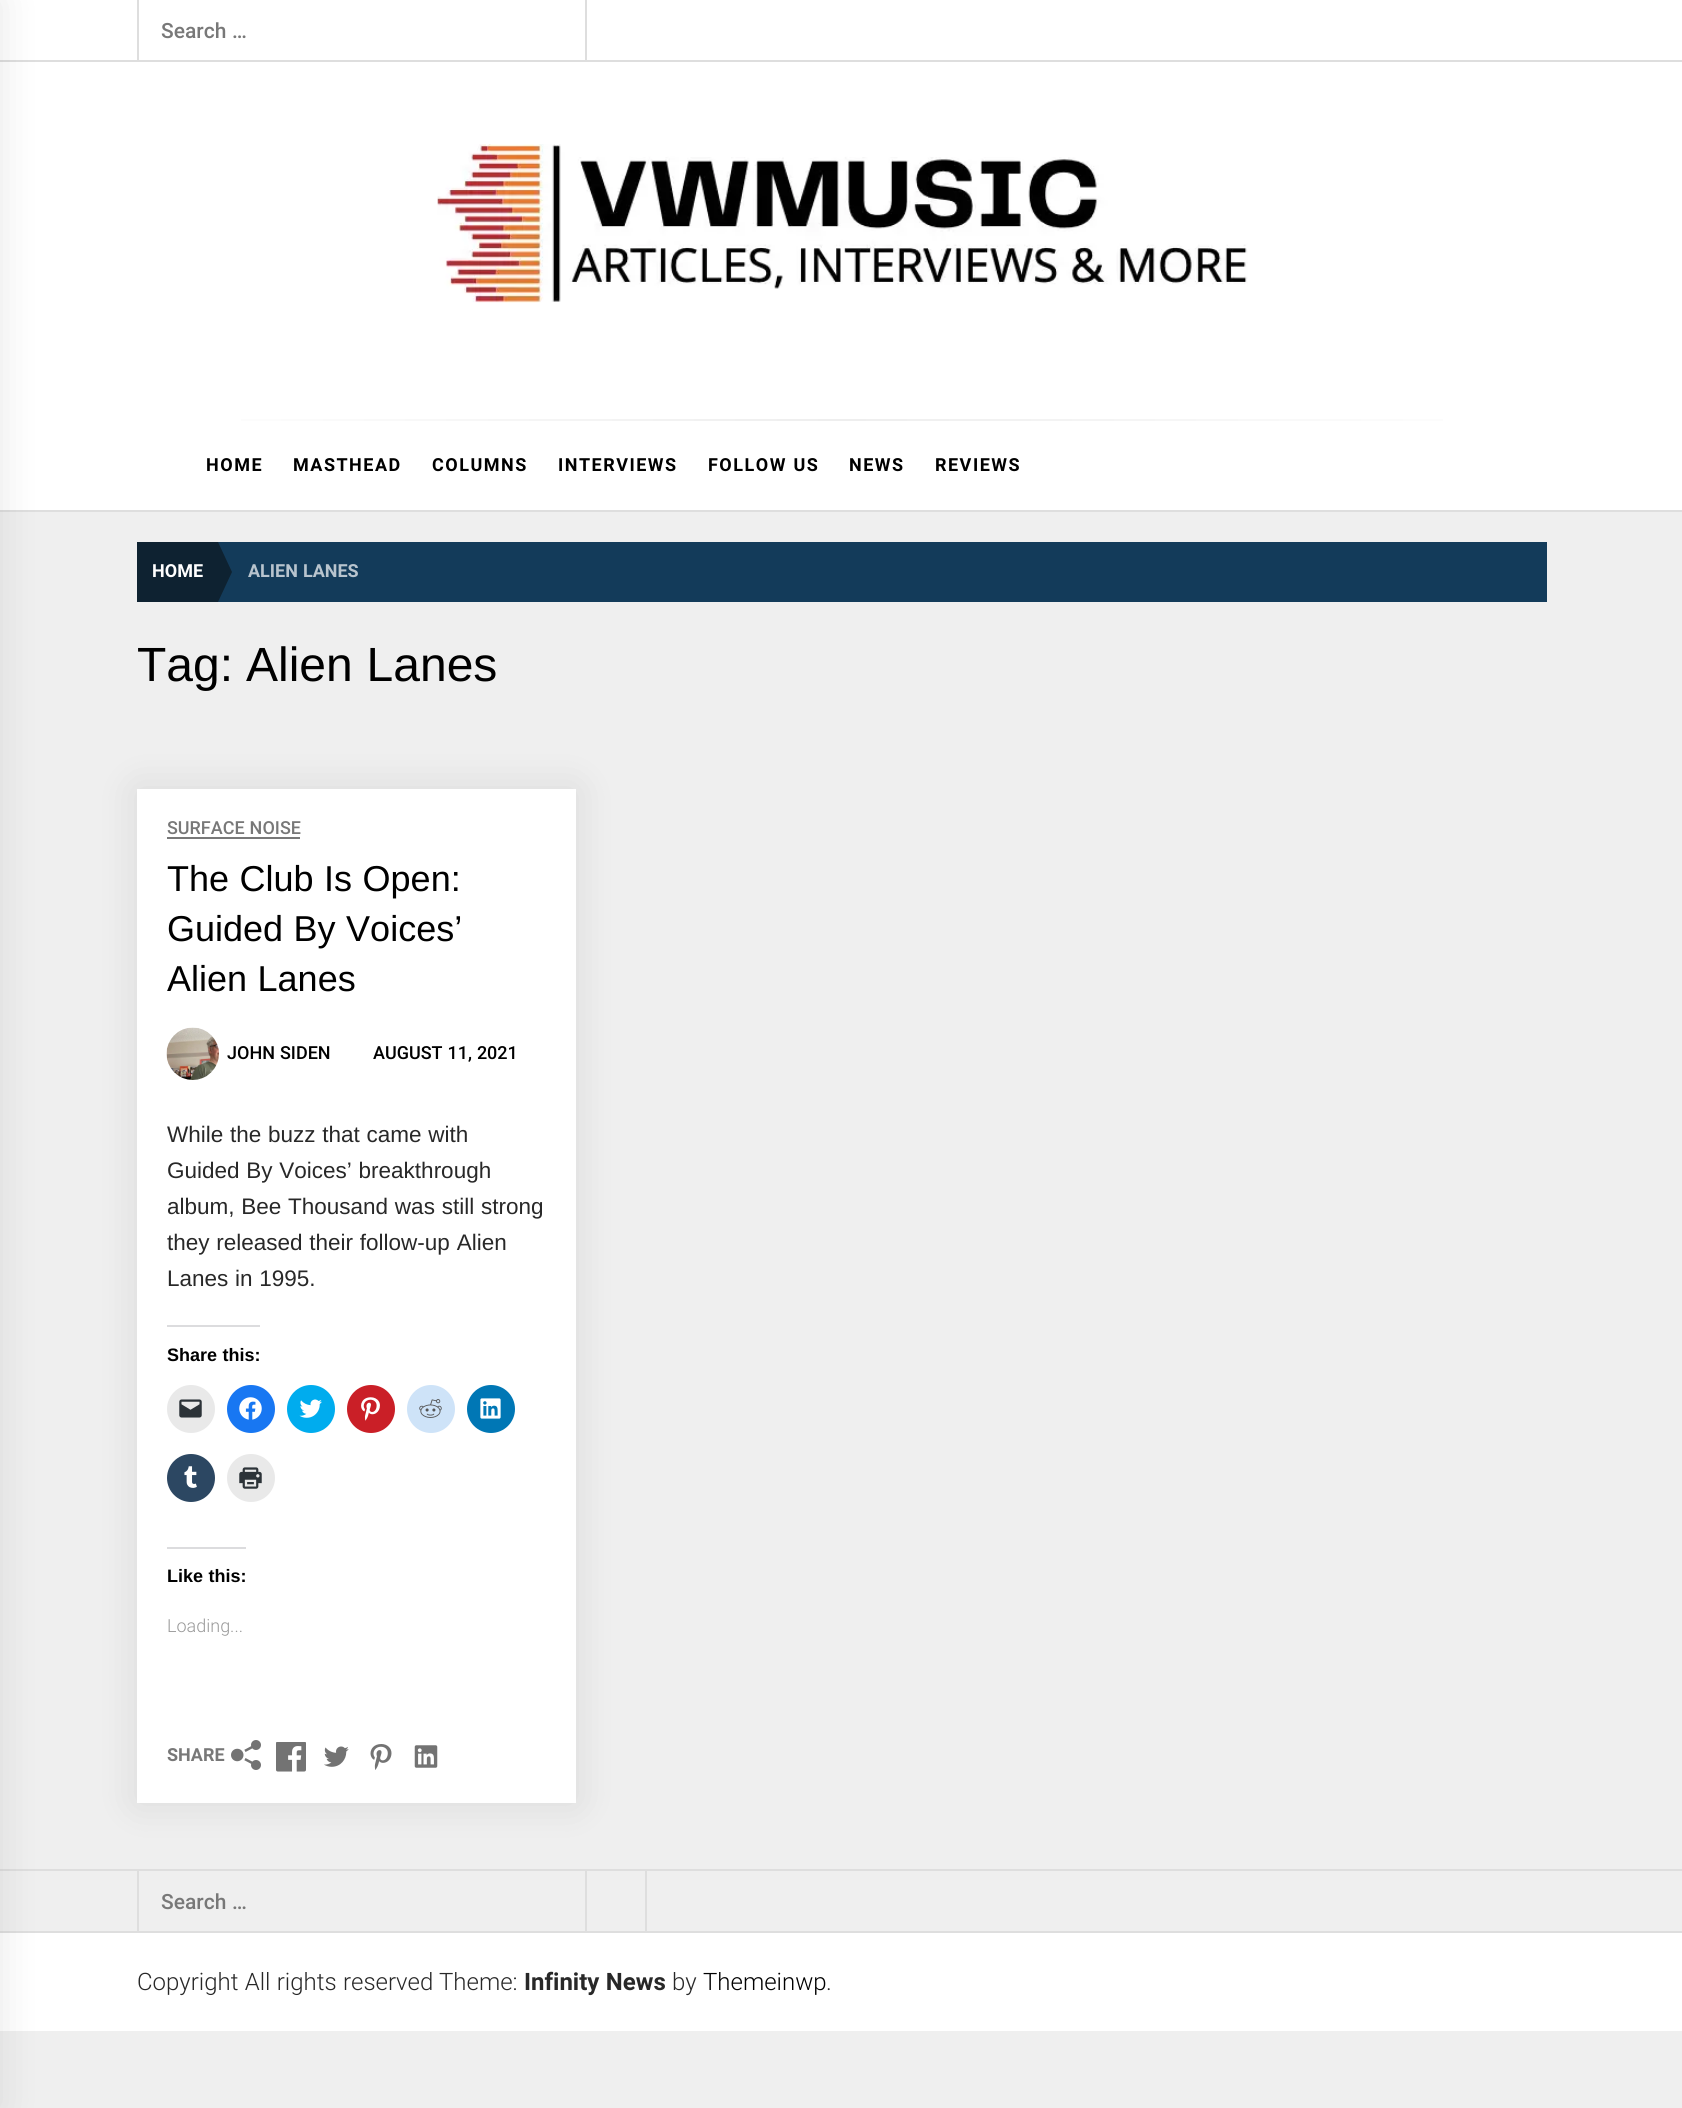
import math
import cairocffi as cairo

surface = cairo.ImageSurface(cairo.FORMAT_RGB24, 1682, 2108)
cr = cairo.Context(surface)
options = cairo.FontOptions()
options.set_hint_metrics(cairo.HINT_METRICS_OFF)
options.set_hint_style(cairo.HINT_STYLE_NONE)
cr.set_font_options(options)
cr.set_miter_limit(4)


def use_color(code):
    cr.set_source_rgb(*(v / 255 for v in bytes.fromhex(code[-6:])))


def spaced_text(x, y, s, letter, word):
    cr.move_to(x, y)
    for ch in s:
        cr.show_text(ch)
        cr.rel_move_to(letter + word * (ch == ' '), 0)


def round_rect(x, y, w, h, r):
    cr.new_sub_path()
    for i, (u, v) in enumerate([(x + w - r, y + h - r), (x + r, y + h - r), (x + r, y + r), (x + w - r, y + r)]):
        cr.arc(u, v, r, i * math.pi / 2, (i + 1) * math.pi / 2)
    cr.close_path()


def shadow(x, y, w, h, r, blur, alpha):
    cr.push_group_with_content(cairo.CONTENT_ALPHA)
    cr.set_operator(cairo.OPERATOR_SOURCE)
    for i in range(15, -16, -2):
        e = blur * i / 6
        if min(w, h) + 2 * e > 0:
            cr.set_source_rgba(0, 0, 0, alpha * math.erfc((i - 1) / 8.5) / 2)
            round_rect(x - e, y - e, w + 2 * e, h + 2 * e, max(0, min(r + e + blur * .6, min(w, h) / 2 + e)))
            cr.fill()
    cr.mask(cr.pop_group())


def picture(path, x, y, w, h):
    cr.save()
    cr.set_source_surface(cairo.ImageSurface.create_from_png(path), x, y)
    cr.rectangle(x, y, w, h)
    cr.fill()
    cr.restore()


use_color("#efefef")
cr.paint()
use_color("#ffffff")
cr.rectangle(0, 0, 1682, 510)
cr.fill()
use_color("#dedede")
cr.rectangle(0, 60, 1682, 2)
cr.fill()
cr.rectangle(0, 510, 1682, 2)
cr.fill()
cr.rectangle(0, 1869, 1682, 2)
cr.fill()
use_color("#ffffff")
cr.rectangle(0, 1933, 1682, 98)
cr.fill()
use_color("#dedede")
cr.rectangle(0, 1931, 1682, 2)
cr.fill()
use_color("#000000")
shadow(-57, 0, 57, 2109, 0, 19, 0.1)
use_color("#dedede")
cr.rectangle(585, 0, 2, 60)
cr.fill()
cr.rectangle(137, 0, 2, 60)
cr.fill()
cr.select_font_face("Roboto Medium")
cr.set_font_size(21)
use_color("#787878")
spaced_text(161, 38, "Search …", 0, 0.5)
picture("img1.png", 437, 144, 811, 159)
gradient = cairo.LinearGradient(1547, 419, 137, 419)
gradient.add_color_stop_rgba(0, 1, 1, 1, 1)
gradient.add_color_stop_rgba(0.5, 0.933, 0.933, 0.933, 1)
gradient.add_color_stop_rgba(1, 1, 1, 1, 1)
cr.set_source(gradient)
cr.rectangle(241, 419, 1202, 2)
cr.fill()
cr.select_font_face("Roboto", cairo.FONT_SLANT_NORMAL, cairo.FONT_WEIGHT_BOLD)
cr.set_font_size(18)
use_color("#000000")
spaced_text(206, 471, "HOME", 1.5, 0)
spaced_text(293, 471, "MASTHEAD", 1.5, 0)
spaced_text(432, 471, "COLUMNS", 1.5, 0)
spaced_text(558, 471, "INTERVIEWS", 1.5, 0)
spaced_text(708, 471, "FOLLOW US", 1.5, 0.5)
spaced_text(849, 471, "NEWS", 1.5, 0)
spaced_text(935, 471, "REVIEWS", 1.5, 0)
use_color("#133b5a")
cr.rectangle(218, 542, 1329, 60)
cr.fill()
use_color("#0e2231")
cr.rectangle(137, 542, 81, 60)
cr.fill()
use_color("#ffffff")
cr.move_to(152, 577)
cr.show_text("HOME")
use_color("#0e2231")
cr.new_path()
cr.move_to(218, 602)
cr.line_to(218, 542)
cr.line_to(232, 572)
cr.close_path()
cr.fill()
use_color("#b8c4ce")
spaced_text(248, 577, "ALIEN LANES", 0, 0.5)
cr.select_font_face("Liberation Sans")
cr.set_font_size(48)
use_color("#000000")
cr.move_to(137, 681)
cr.show_text("Tag:")
spaced_text(246, 681, "Alien Lanes", 0, 0.5)
use_color("#000000")
shadow(137, 789, 439, 1014, 0, 19, 0.1)
use_color("#ffffff")
cr.rectangle(137, 789, 439, 1014)
cr.fill()
use_color("#787878")
cr.rectangle(167, 837, 133, 2)
cr.fill()
cr.select_font_face("Roboto Medium")
cr.set_font_size(18)
spaced_text(167, 834, "SURFACE NOISE", 0, 0.5)
cr.select_font_face("Liberation Sans")
cr.set_font_size(36)
use_color("#000000")
spaced_text(167, 891, "The Club Is Open:", 0, 0.5)
spaced_text(167, 941, "Guided By Voices’", 0, 0.5)
spaced_text(167, 991, "Alien Lanes", 0, 0.5)
picture("img2.png", 166, 1027, 53, 53)
cr.select_font_face("Roboto Medium")
cr.set_font_size(18)
spaced_text(227, 1059, "JOHN SIDEN", 0, 0.5)
spaced_text(373, 1059, "AUGUST 11, 2021", 0, 0.5)
cr.select_font_face("Liberation Sans")
cr.set_font_size(22.5)
use_color("#282828")
spaced_text(167, 1142, "While the buzz that came with", 0, 0.5)
spaced_text(167, 1178, "Guided By Voices’ breakthrough", 0, 0.5)
spaced_text(167, 1214, "album, Bee Thousand was still strong", 0, 0.5)
spaced_text(167, 1250, "they released their follow-up Alien", 0, 0.5)
spaced_text(167, 1286, "Lanes in 1995.", 0, 0.5)
use_color("#dcdcde")
cr.rectangle(167, 1325, 93, 2)
cr.fill()
cr.select_font_face("Liberation Sans", cairo.FONT_SLANT_NORMAL, cairo.FONT_WEIGHT_BOLD)
cr.set_font_size(18)
use_color("#000000")
spaced_text(167, 1361, "Share this:", 0, 0.5)
use_color("#e9e9e9")
cr.new_path()
cr.arc(191, 1409, 24, 0, 2 * math.pi)
cr.fill()
picture("img3.png", 179, 1399, 23, 19)
use_color("#1877f2")
cr.arc(251, 1409, 24, 0, 2 * math.pi)
cr.fill()
picture("img4.png", 239, 1397, 23, 23)
use_color("#00acee")
cr.arc(311, 1409, 24, 0, 2 * math.pi)
cr.fill()
picture("img5.png", 299, 1399, 23, 19)
use_color("#ca1f27")
cr.arc(371, 1409, 24, 0, 2 * math.pi)
cr.fill()
picture("img6.png", 361, 1397, 19, 24)
use_color("#cee3f8")
cr.arc(431, 1409, 24, 0, 2 * math.pi)
cr.fill()
picture("img7.png", 419, 1399, 23, 19)
use_color("#0077b5")
cr.arc(491, 1409, 24, 0, 2 * math.pi)
cr.fill()
picture("img8.png", 480, 1398, 21, 21)
use_color("#2c4762")
cr.arc(191, 1478, 24, 0, 2 * math.pi)
cr.fill()
picture("img9.png", 184, 1466, 13, 22)
use_color("#e9e9e9")
cr.arc(251, 1478, 24, 0, 2 * math.pi)
cr.fill()
picture("img10.png", 239, 1467, 23, 22)
use_color("#dcdcde")
cr.rectangle(167, 1547, 79, 2)
cr.fill()
use_color("#000000")
spaced_text(167, 1582, "Like this:", 0, 0.5)
cr.select_font_face("Roboto Light")
use_color("#999999")
cr.move_to(167, 1632)
cr.show_text("Loading...")
cr.select_font_face("Roboto", cairo.FONT_SLANT_NORMAL, cairo.FONT_WEIGHT_BOLD)
use_color("#787878")
cr.move_to(167, 1761)
cr.show_text("SHARE")
picture("img11.png", 231, 1740, 30, 30)
picture("img12.png", 276, 1742, 30, 30)
picture("img13.png", 324, 1746, 25, 21)
picture("img14.png", 370, 1744, 22, 26)
picture("img15.png", 414, 1745, 24, 23)
use_color("#dedede")
cr.rectangle(585, 1871, 2, 60)
cr.fill()
cr.rectangle(137, 1871, 2, 60)
cr.fill()
cr.select_font_face("Roboto Medium")
cr.set_font_size(21)
use_color("#787878")
spaced_text(161, 1909, "Search …", 0, 0.5)
use_color("#dedede")
cr.rectangle(645, 1871, 2, 60)
cr.fill()
cr.select_font_face("Roboto Light")
cr.set_font_size(24)
use_color("#282828")
spaced_text(137, 1990, "Copyright All rights reserved", 0, 0.5)
cr.move_to(439, 1990)
cr.show_text("Theme:")
cr.select_font_face("Roboto", cairo.FONT_SLANT_NORMAL, cairo.FONT_WEIGHT_BOLD)
spaced_text(524, 1990, "Infinity News", 0, 0.5)
cr.select_font_face("Roboto Light")
cr.move_to(672, 1990)
cr.show_text("by")
use_color("#000000")
cr.move_to(703, 1990)
cr.show_text("Themeinwp")
use_color("#282828")
cr.move_to(826, 1990)
cr.show_text(".")
surface.write_to_png("result.png")
